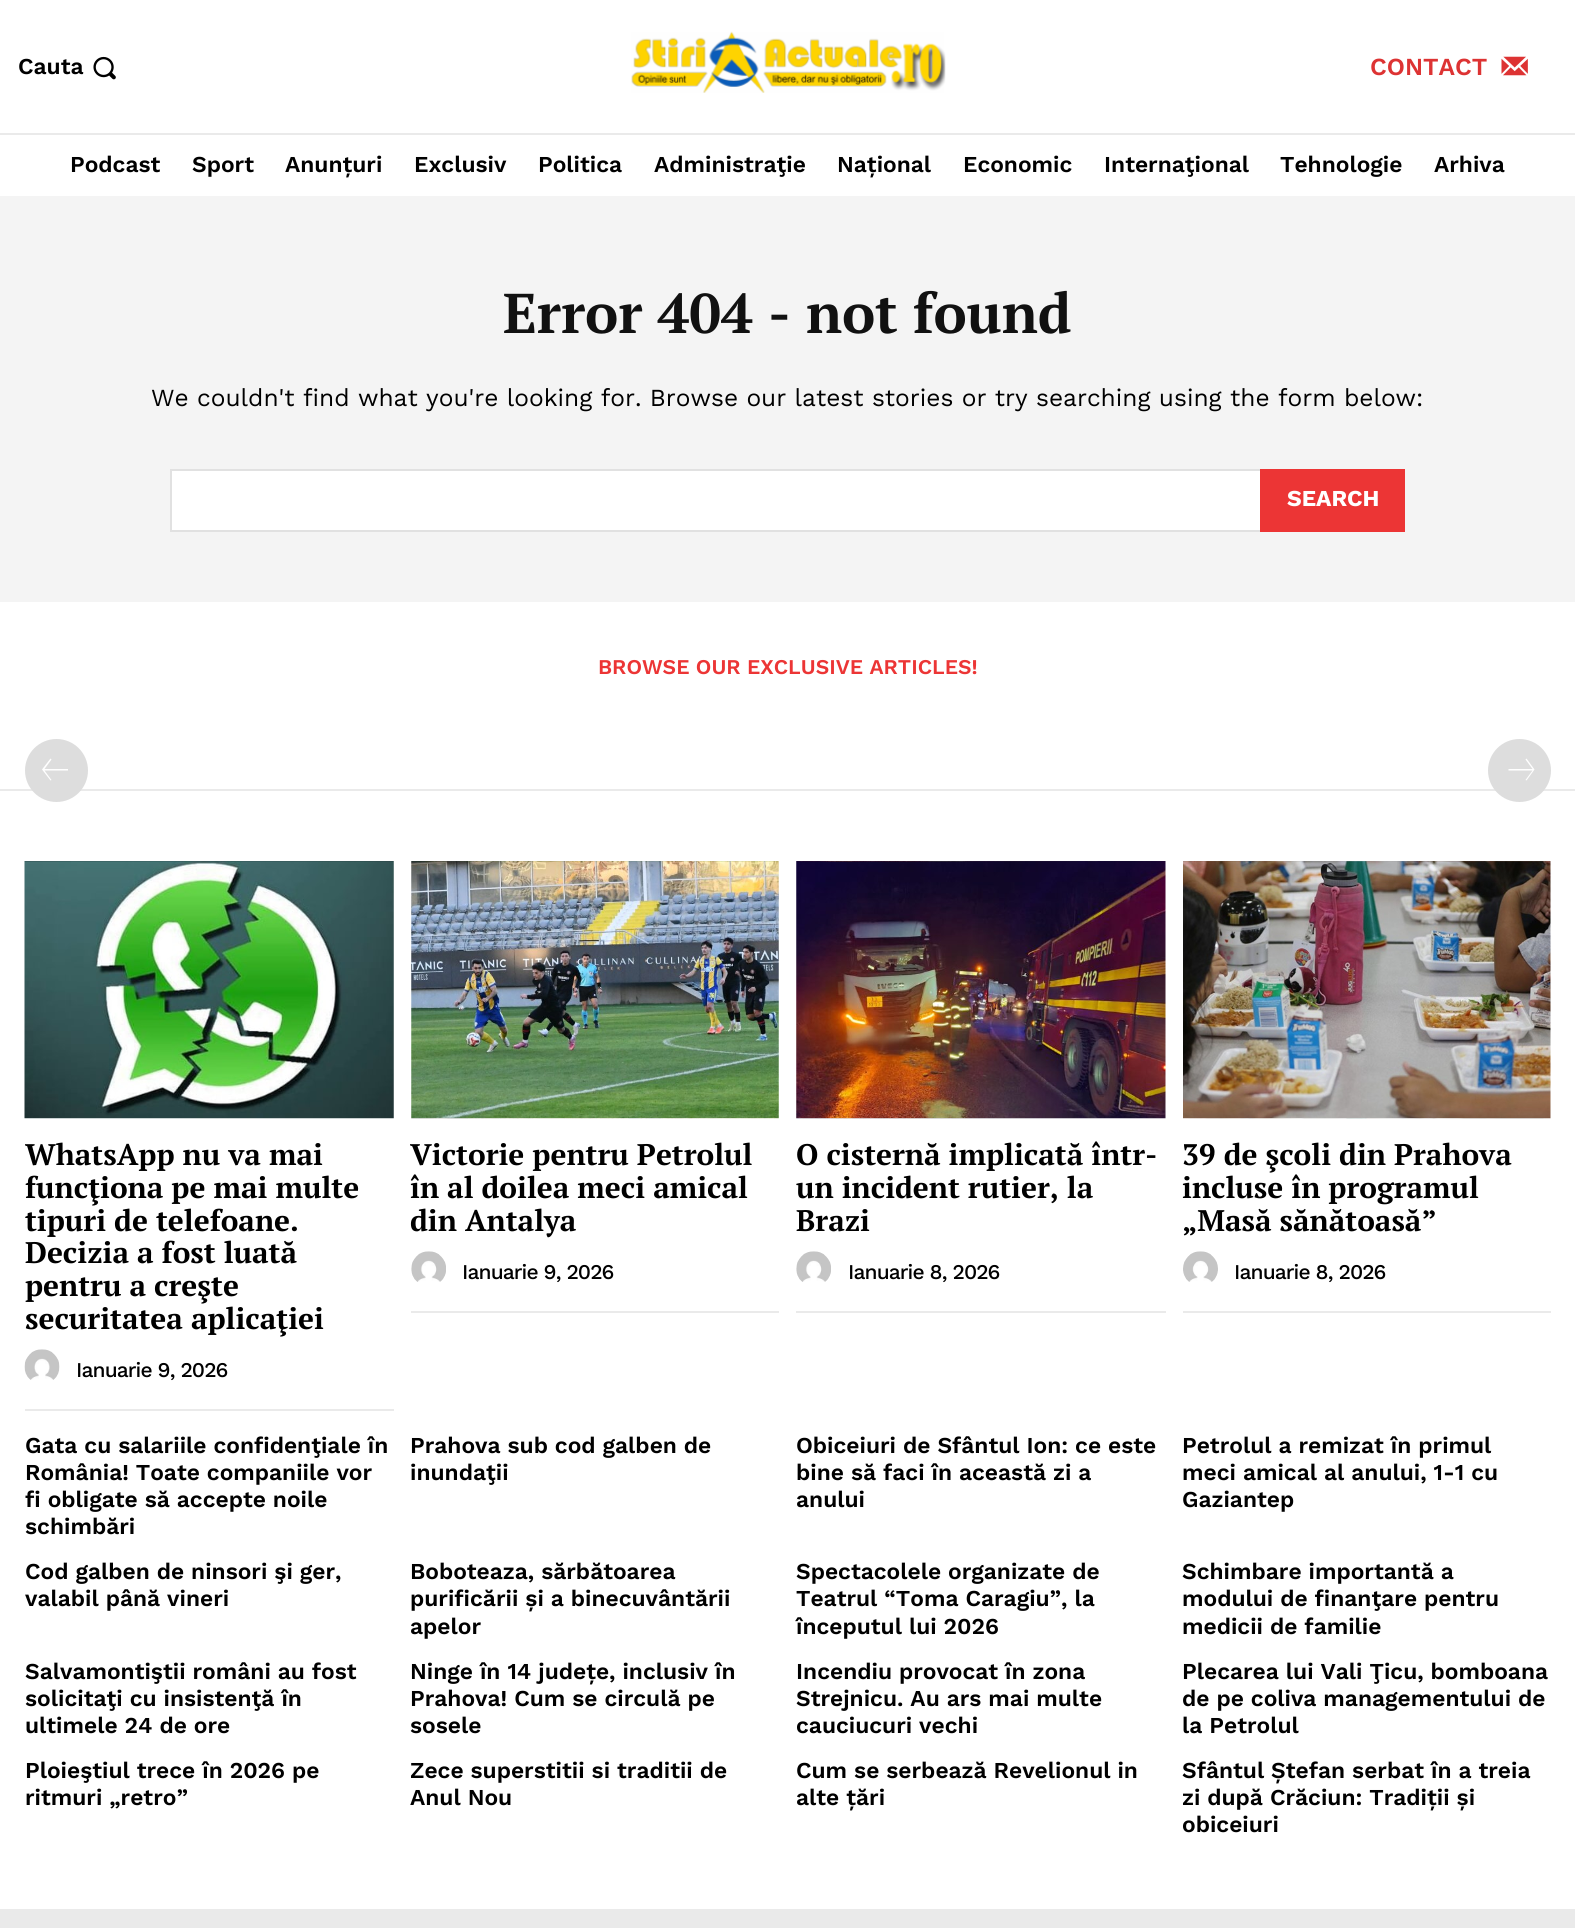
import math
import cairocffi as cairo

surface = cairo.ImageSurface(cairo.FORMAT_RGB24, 1575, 1928)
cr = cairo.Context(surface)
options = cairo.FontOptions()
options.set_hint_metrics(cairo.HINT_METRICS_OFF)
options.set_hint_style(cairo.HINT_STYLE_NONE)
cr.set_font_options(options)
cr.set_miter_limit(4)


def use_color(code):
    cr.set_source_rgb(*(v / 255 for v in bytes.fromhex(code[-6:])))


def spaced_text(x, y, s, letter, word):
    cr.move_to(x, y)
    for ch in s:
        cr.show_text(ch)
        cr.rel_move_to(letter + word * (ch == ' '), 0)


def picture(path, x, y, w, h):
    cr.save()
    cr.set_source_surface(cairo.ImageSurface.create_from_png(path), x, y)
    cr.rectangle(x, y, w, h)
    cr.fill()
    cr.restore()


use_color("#ffffff")
cr.paint()
cr.select_font_face("Work Sans SemiBold")
cr.set_font_size(22.75)
use_color("#000000")
cr.move_to(18, 74)
cr.show_text("Cauta")
picture("img1.png", 93, 56, 23, 24)
picture("img2.png", 631, 31, 315, 62)
cr.set_font_size(24.5)
use_color("#dd3333")
cr.move_to(1370, 75)
cr.show_text("CONTACT")
picture("img3.png", 1501, 56, 27, 20)
use_color("#eaeaea")
cr.rectangle(0, 133, 1575, 2)
cr.fill()
cr.set_font_size(22.75)
use_color("#000000")
cr.move_to(70, 172)
cr.show_text("Podcast")
cr.move_to(192, 172)
cr.show_text("Sport")
cr.move_to(285, 172)
cr.show_text("Anunțuri")
cr.move_to(414, 172)
cr.show_text("Exclusiv")
cr.move_to(538, 172)
cr.show_text("Politica")
cr.move_to(654, 172)
cr.show_text("Administraţie")
cr.move_to(837, 172)
cr.show_text("Național")
cr.move_to(963, 172)
cr.show_text("Economic")
cr.move_to(1104, 172)
cr.show_text("Internaţional")
cr.move_to(1280, 172)
cr.show_text("Tehnologie")
cr.move_to(1434, 172)
cr.show_text("Arhiva")
use_color("#f4f4f4")
cr.rectangle(0, 196, 1575, 406)
cr.fill()
cr.select_font_face("PT Serif", cairo.FONT_SLANT_NORMAL, cairo.FONT_WEIGHT_BOLD)
cr.set_font_size(56)
use_color("#111111")
cr.move_to(503, 333)
cr.show_text("Error 404 - not found")
cr.select_font_face("Work Sans")
cr.set_font_size(24.5)
use_color("#000000")
cr.move_to(151, 406)
cr.show_text("We couldn't find what you're looking for. Browse our latest stories or try searching using the form below:")
use_color("#ffffff")
cr.rectangle(172, 471, 1088, 59)
cr.fill()
cr.rectangle(171, 470, 1233, 61)
use_color("#e1e1e1")
cr.stroke()
use_color("#ec3535")
cr.rectangle(1260, 469, 145, 63)
cr.fill()
cr.select_font_face("Work Sans", cairo.FONT_SLANT_NORMAL, cairo.FONT_WEIGHT_BOLD)
cr.set_font_size(22.75)
use_color("#ffffff")
cr.move_to(1287, 506)
cr.show_text("SEARCH")
cr.select_font_face("Work Sans SemiBold")
cr.set_font_size(21)
use_color("#ec3535")
cr.move_to(598, 674)
cr.show_text("BROWSE OUR EXCLUSIVE ARTICLES!")
use_color("#eaeaea")
cr.rectangle(0, 789, 1575, 2)
cr.fill()
use_color("#dddddd")
cr.arc(56.5, 770.5, 31.5, 0, 2 * math.pi)
cr.fill()
use_color("#ffffff")
cr.new_path()
cr.move_to(51.5, 780)
cr.line_to(44.5, 770.5)
cr.line_to(68, 770.5)
cr.line_to(68, 769)
cr.line_to(44.5, 769)
cr.line_to(51.5, 759.5)
cr.line_to(50.5, 758.5)
cr.line_to(42, 769.5)
cr.line_to(50.5, 780.5)
cr.close_path()
cr.fill()
use_color("#dddddd")
cr.arc(1519.5, 770.5, 31.5, 0, 2 * math.pi)
cr.fill()
use_color("#ffffff")
cr.new_path()
cr.move_to(1525.5, 780)
cr.line_to(1526.5, 780.5)
cr.line_to(1534.5, 769.5)
cr.line_to(1526.5, 758.5)
cr.line_to(1525.5, 759.5)
cr.line_to(1532.5, 769)
cr.line_to(1508.5, 769)
cr.line_to(1508.5, 770.5)
cr.line_to(1532.5, 770.5)
cr.close_path()
cr.fill()
use_color("#eaeaea")
cr.rectangle(25, 1409, 369, 2)
cr.fill()
picture("img4.png", 24, 861, 370, 258)
cr.select_font_face("PT Serif", cairo.FONT_SLANT_NORMAL, cairo.FONT_WEIGHT_BOLD)
cr.set_font_size(29.75)
use_color("#000000")
cr.move_to(25, 1165)
cr.show_text("WhatsApp nu va mai")
cr.move_to(25, 1198)
cr.show_text("funcţiona pe mai multe")
cr.move_to(25, 1231)
cr.show_text("tipuri de telefoane.")
cr.move_to(25, 1263)
cr.show_text("Decizia a fost luată")
cr.move_to(25, 1296)
cr.show_text("pentru a creşte")
cr.move_to(25, 1329)
cr.show_text("securitatea aplicaţiei")
picture("img5.png", 24, 1349, 36, 31)
cr.select_font_face("Work Sans Medium")
cr.set_font_size(21)
spaced_text(76, 1377, "Ianuarie 9, 2026", -0.9, 0)
use_color("#eaeaea")
cr.rectangle(411, 1311, 368, 2)
cr.fill()
picture("img6.png", 411, 861, 368, 258)
cr.select_font_face("PT Serif", cairo.FONT_SLANT_NORMAL, cairo.FONT_WEIGHT_BOLD)
cr.set_font_size(29.75)
use_color("#000000")
cr.move_to(410, 1165)
cr.show_text("Victorie pentru Petrolul")
cr.move_to(410, 1198)
cr.show_text("în al doilea meci amical")
cr.move_to(410, 1231)
cr.show_text("din Antalya")
picture("img7.png", 411, 1251, 35, 31)
cr.select_font_face("Work Sans Medium")
cr.set_font_size(21)
spaced_text(462, 1279, "Ianuarie 9, 2026", -0.9, 0)
use_color("#eaeaea")
cr.rectangle(796, 1311, 370, 2)
cr.fill()
picture("img8.png", 796, 861, 370, 258)
cr.select_font_face("PT Serif", cairo.FONT_SLANT_NORMAL, cairo.FONT_WEIGHT_BOLD)
cr.set_font_size(29.75)
use_color("#000000")
cr.move_to(796, 1165)
cr.show_text("O cisternă implicată într-")
cr.move_to(796, 1198)
cr.show_text("un incident rutier, la")
cr.move_to(796, 1231)
cr.show_text("Brazi")
picture("img9.png", 796, 1251, 35, 31)
cr.select_font_face("Work Sans Medium")
cr.set_font_size(21)
spaced_text(848, 1279, "Ianuarie 8, 2026", -0.9, 0)
use_color("#eaeaea")
cr.rectangle(1183, 1311, 368, 2)
cr.fill()
picture("img10.png", 1183, 861, 368, 258)
cr.select_font_face("PT Serif", cairo.FONT_SLANT_NORMAL, cairo.FONT_WEIGHT_BOLD)
cr.set_font_size(29.75)
use_color("#000000")
cr.move_to(1182, 1165)
cr.show_text("39 de şcoli din Prahova")
cr.move_to(1182, 1198)
cr.show_text("incluse în programul")
cr.move_to(1182, 1231)
cr.show_text("„Masă sănătoasă”")
picture("img11.png", 1183, 1251, 35, 31)
cr.select_font_face("Work Sans Medium")
cr.set_font_size(21)
spaced_text(1234, 1279, "Ianuarie 8, 2026", -0.9, 0)
cr.select_font_face("Work Sans SemiBold")
cr.set_font_size(22.75)
cr.move_to(25, 1453)
cr.show_text("Gata cu salariile confidenţiale în")
cr.move_to(25, 1480)
cr.show_text("România! Toate companiile vor")
cr.move_to(25, 1507)
cr.show_text("fi obligate să accepte noile")
cr.move_to(25, 1534)
cr.show_text("schimbări")
cr.move_to(410, 1453)
cr.show_text("Prahova sub cod galben de")
cr.move_to(410, 1480)
cr.show_text("inundaţii")
cr.move_to(796, 1453)
cr.show_text("Obiceiuri de Sfântul Ion: ce este")
cr.move_to(796, 1480)
cr.show_text("bine să faci în această zi a")
cr.move_to(796, 1507)
cr.show_text("anului")
cr.move_to(1182, 1453)
cr.show_text("Petrolul a remizat în primul")
cr.move_to(1182, 1480)
cr.show_text("meci amical al anului, 1-1 cu")
cr.move_to(1182, 1507)
cr.show_text("Gaziantep")
cr.move_to(25, 1579)
cr.show_text("Cod galben de ninsori şi ger,")
cr.move_to(25, 1606)
cr.show_text("valabil până vineri")
cr.move_to(410, 1579)
cr.show_text("Boboteaza, sărbătoarea")
cr.move_to(410, 1606)
cr.show_text("purificării și a binecuvântării")
cr.move_to(410, 1634)
cr.show_text("apelor")
cr.move_to(796, 1579)
cr.show_text("Spectacolele organizate de")
cr.move_to(796, 1606)
cr.show_text("Teatrul “Toma Caragiu”, la")
cr.move_to(796, 1634)
cr.show_text("începutul lui 2026")
cr.move_to(1182, 1579)
cr.show_text("Schimbare importantă a")
cr.move_to(1182, 1606)
cr.show_text("modului de finanţare pentru")
cr.move_to(1182, 1634)
cr.show_text("medicii de familie")
cr.move_to(25, 1679)
cr.show_text("Salvamontiştii români au fost")
cr.move_to(25, 1706)
cr.show_text("solicitaţi cu insistenţă în")
cr.move_to(25, 1733)
cr.show_text("ultimele 24 de ore")
cr.move_to(410, 1679)
cr.show_text("Ninge în 14 județe, inclusiv în")
cr.move_to(410, 1706)
cr.show_text("Prahova! Cum se circulă pe")
cr.move_to(410, 1733)
cr.show_text("sosele")
cr.move_to(796, 1679)
cr.show_text("Incendiu provocat în zona")
cr.move_to(796, 1706)
cr.show_text("Strejnicu. Au ars mai multe")
cr.move_to(796, 1733)
cr.show_text("cauciucuri vechi")
cr.move_to(1182, 1679)
cr.show_text("Plecarea lui Vali Ţicu, bomboana")
cr.move_to(1182, 1706)
cr.show_text("de pe coliva managementului de")
cr.move_to(1182, 1733)
cr.show_text("la Petrolul")
cr.move_to(25, 1778)
cr.show_text("Ploieştiul trece în 2026 pe")
cr.move_to(25, 1805)
cr.show_text("ritmuri „retro”")
cr.move_to(410, 1778)
cr.show_text("Zece superstitii si traditii de")
cr.move_to(410, 1805)
cr.show_text("Anul Nou")
cr.move_to(796, 1778)
cr.show_text("Cum se serbează Revelionul in")
cr.move_to(796, 1805)
cr.show_text("alte țări")
cr.move_to(1182, 1778)
cr.show_text("Sfântul Ștefan serbat în a treia")
cr.move_to(1182, 1805)
cr.show_text("zi după Crăciun: Tradiții și")
cr.move_to(1182, 1832)
cr.show_text("obiceiuri")
use_color("#eaeaea")
cr.rectangle(0, 1909, 1575, 19)
cr.fill()
surface.write_to_png("result.png")
